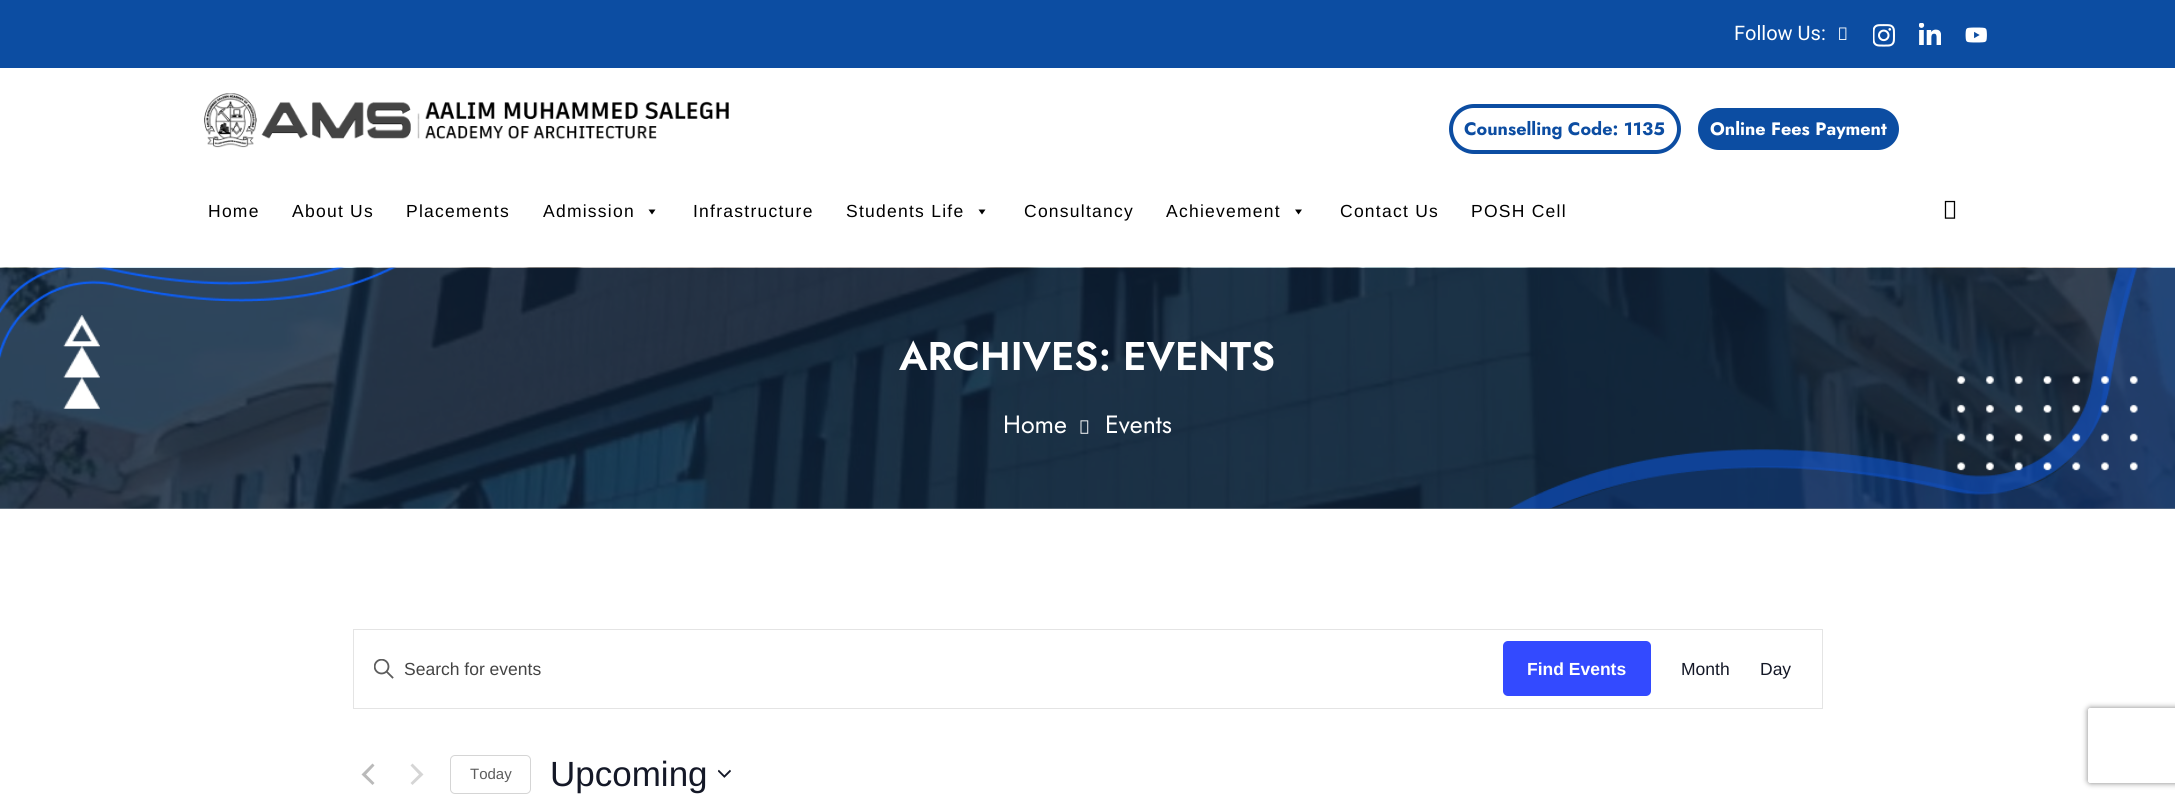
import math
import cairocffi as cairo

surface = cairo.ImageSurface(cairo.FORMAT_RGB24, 2175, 800)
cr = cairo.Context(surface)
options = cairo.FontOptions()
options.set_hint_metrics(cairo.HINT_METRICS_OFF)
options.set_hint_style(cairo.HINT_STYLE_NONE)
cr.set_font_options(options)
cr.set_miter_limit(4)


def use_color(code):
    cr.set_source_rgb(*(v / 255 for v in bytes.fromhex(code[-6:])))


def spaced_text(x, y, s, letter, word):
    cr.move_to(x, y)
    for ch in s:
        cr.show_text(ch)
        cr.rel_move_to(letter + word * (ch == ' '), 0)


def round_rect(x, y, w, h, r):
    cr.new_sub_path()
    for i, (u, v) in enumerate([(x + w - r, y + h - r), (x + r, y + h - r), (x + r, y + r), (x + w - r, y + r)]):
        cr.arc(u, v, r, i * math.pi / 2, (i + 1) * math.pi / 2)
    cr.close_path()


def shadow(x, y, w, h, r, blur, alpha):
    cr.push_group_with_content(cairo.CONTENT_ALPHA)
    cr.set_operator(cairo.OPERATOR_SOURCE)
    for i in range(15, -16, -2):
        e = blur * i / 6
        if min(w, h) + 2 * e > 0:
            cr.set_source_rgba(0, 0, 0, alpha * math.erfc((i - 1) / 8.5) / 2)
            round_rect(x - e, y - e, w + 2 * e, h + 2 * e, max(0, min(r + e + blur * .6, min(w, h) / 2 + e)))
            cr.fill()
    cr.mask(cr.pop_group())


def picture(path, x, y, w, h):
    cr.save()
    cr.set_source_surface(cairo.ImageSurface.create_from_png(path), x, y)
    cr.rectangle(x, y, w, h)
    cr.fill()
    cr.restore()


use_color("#ffffff")
cr.paint()
use_color("#0c4da2")
cr.rectangle(0, 0, 2175, 68)
cr.fill()
cr.select_font_face("Roboto")
cr.set_font_size(20)
use_color("#ffffff")
cr.move_to(1734, 40)
cr.show_text("Follow Us:")
picture("img1.png", 1839, 27, 8, 13)
picture("img2.png", 1873, 24, 22, 23)
picture("img3.png", 1919, 23, 22, 22)
picture("img4.png", 1965, 27, 22, 16)
picture("img5.png", 204, 93, 525, 55)
round_rect(1451, 106, 228, 46, 23)
use_color("#0c4da2")
cr.set_line_width(4)
cr.stroke()
cr.select_font_face("Jost", cairo.FONT_SLANT_NORMAL, cairo.FONT_WEIGHT_BOLD)
cr.set_font_size(18)
cr.move_to(1464, 135)
cr.show_text("Counselling Code: 1135")
round_rect(1696, 106, 205, 46, 23)
cr.fill_preserve()
use_color("#ffffff")
cr.stroke()
cr.move_to(1710, 135)
cr.show_text("Online Fees Payment")
cr.select_font_face("Liberation Sans")
cr.set_font_size(17.5)
use_color("#000000")
spaced_text(208, 217, "Home", 1.25, 0)
spaced_text(292, 217, "About Us", 1.25, 0)
spaced_text(406, 217, "Placements", 1.25, 0)
spaced_text(543, 217, "Admission", 1.25, 0)
cr.new_path()
cr.move_to(655.5, 209.5)
cr.line_to(652, 214.5)
cr.line_to(648.5, 209.5)
cr.close_path()
cr.fill()
spaced_text(693, 217, "Infrastructure", 1.25, 0)
spaced_text(846, 217, "Students Life", 1.25, 0)
cr.new_path()
cr.move_to(985.5, 209.5)
cr.line_to(982, 214.5)
cr.line_to(978.5, 209.5)
cr.close_path()
cr.fill()
spaced_text(1024, 217, "Consultancy", 1.25, 0)
spaced_text(1166, 217, "Achievement", 1.25, 0)
cr.new_path()
cr.move_to(1302, 209.5)
cr.line_to(1298.5, 214.5)
cr.line_to(1295, 209.5)
cr.close_path()
cr.fill()
spaced_text(1340, 217, "Contact Us", 1.25, 0)
spaced_text(1471, 217, "POSH Cell", 1.25, 0)
picture("img6.png", 1944, 200, 12, 19)
picture("img7.png", 0, 267, 2175, 242)
picture("img8.png", 0, 267, 2175, 242)
picture("img9.png", 63, 315, 37, 94)
cr.select_font_face("Jost SemiBold")
cr.set_font_size(40)
use_color("#ffffff")
cr.move_to(899, 370)
cr.show_text("ARCHIVES: EVENTS")
cr.select_font_face("Jost")
cr.set_font_size(25)
cr.move_to(1003, 433)
cr.show_text("Home")
picture("img10.png", 1080, 420, 9, 14)
cr.move_to(1105, 433)
cr.show_text("Events")
picture("img11.png", 1956, 376, 182, 95)
cr.rectangle(353.5, 629.5, 1469, 79)
use_color("#e4e4e4")
cr.set_line_width(1)
cr.stroke()
picture("img12.png", 374, 659, 20, 20)
cr.select_font_face("Liberation Sans")
cr.set_font_size(17.5)
use_color("#444444")
cr.move_to(404, 675)
cr.show_text("Search for events")
use_color("#334aff")
round_rect(1503, 641, 148, 55, 5)
cr.fill()
cr.select_font_face("Liberation Sans", cairo.FONT_SLANT_NORMAL, cairo.FONT_WEIGHT_BOLD)
use_color("#ffffff")
cr.move_to(1527, 675)
cr.show_text("Find Events")
cr.select_font_face("Liberation Sans")
use_color("#141827")
cr.move_to(1681, 675)
cr.show_text("Month")
cr.move_to(1760, 675)
cr.show_text("Day")
use_color("#bababa")
cr.new_path()
cr.move_to(374.5, 783)
cr.line_to(372.5, 785)
cr.line_to(361.5, 774.5)
cr.line_to(372.5, 763.5)
cr.line_to(374.5, 765.5)
cr.line_to(366, 774.5)
cr.close_path()
cr.fill()
use_color("#d5d5d5")
cr.new_path()
cr.move_to(410.5, 765.5)
cr.line_to(412.5, 763.5)
cr.line_to(423.5, 774.5)
cr.line_to(412.5, 785)
cr.line_to(410.5, 783)
cr.line_to(419, 774.5)
cr.close_path()
cr.fill()
round_rect(450.5, 755.5, 80, 38, 4.5)
cr.stroke()
cr.set_font_size(15)
use_color("#5d5d5d")
cr.move_to(470, 779)
cr.show_text("Today")
cr.set_font_size(35)
use_color("#141827")
cr.move_to(550, 786)
cr.show_text("Upcoming")
picture("img13.png", 718, 769, 13, 9)
cr.save()
cr.set_fill_rule(cairo.FILL_RULE_EVEN_ODD)
cr.new_path()
cr.move_to(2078, 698)
cr.line_to(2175, 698)
cr.line_to(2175, 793)
cr.line_to(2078, 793)
cr.close_path()
cr.move_to(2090.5, 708)
cr.line_to(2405.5, 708)
cr.curve_to(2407, 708, 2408, 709, 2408, 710.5)
cr.line_to(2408, 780.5)
cr.curve_to(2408, 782, 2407, 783, 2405.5, 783)
cr.line_to(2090.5, 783)
cr.curve_to(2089, 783, 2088, 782, 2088, 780.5)
cr.line_to(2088, 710.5)
cr.curve_to(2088, 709, 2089, 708, 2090.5, 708)
cr.close_path()
cr.clip()
use_color("#808080")
shadow(2088, 708, 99, 75, 2.5, 3, 1)
cr.restore()
surface.write_to_png("result.png")
